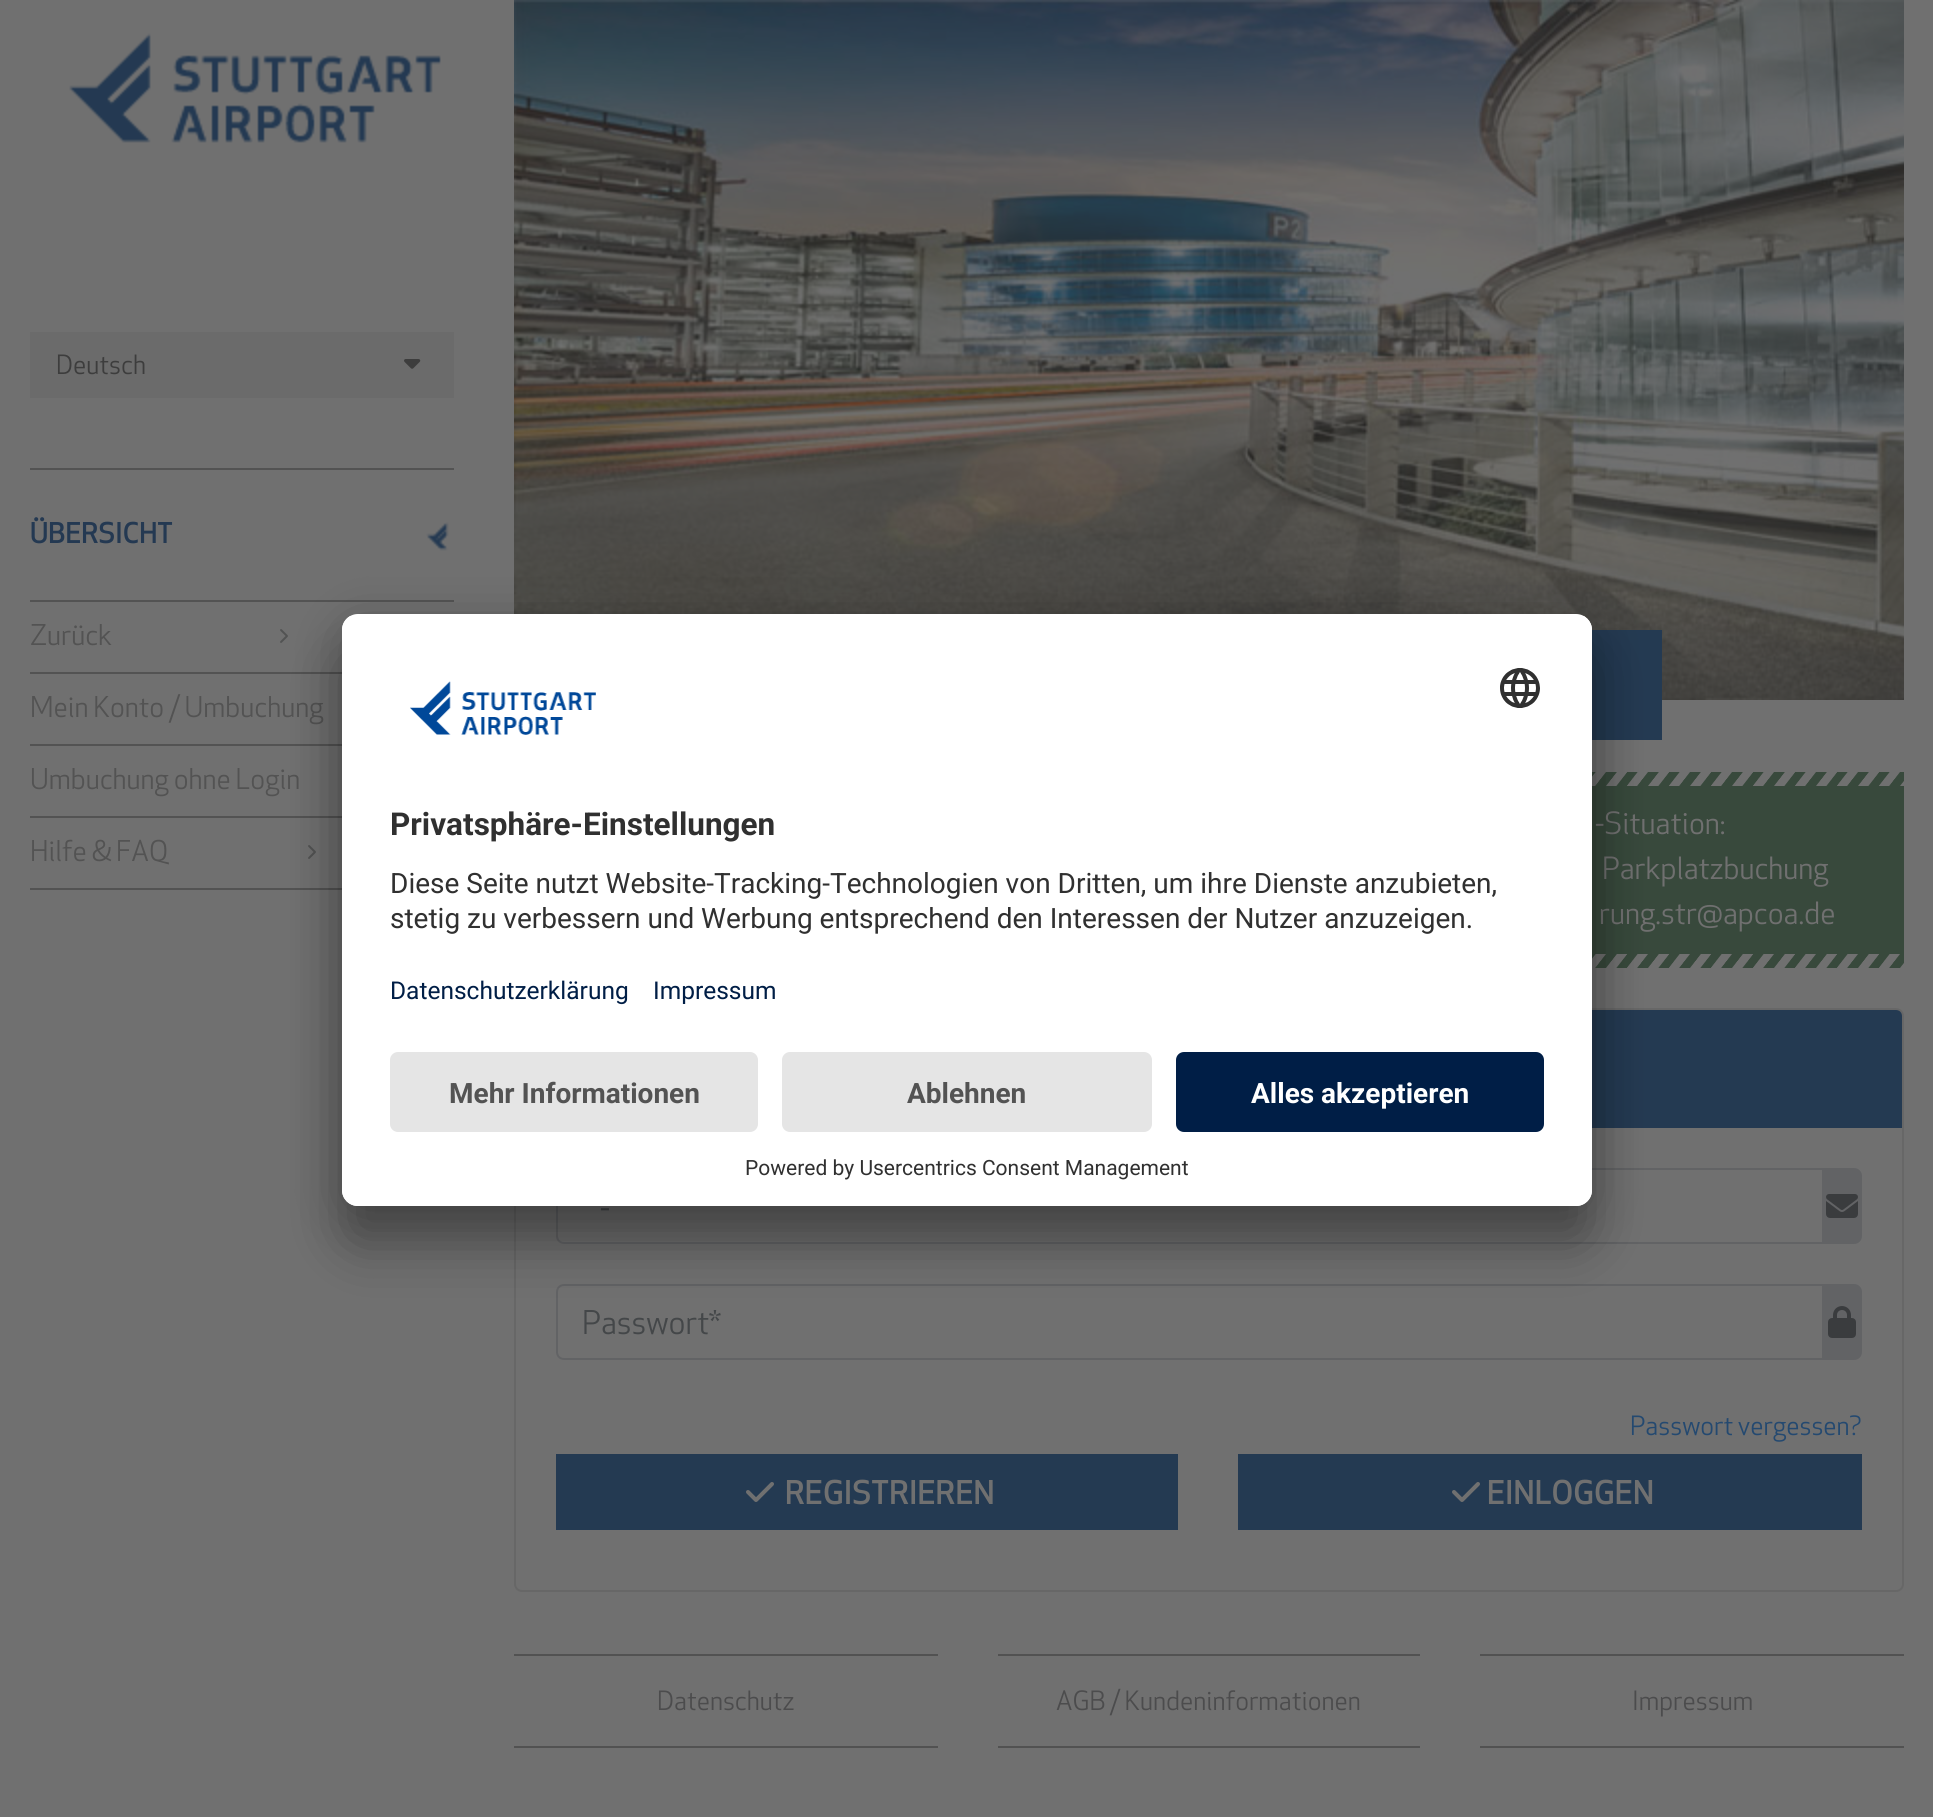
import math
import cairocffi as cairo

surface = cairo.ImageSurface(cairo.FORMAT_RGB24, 1933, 1817)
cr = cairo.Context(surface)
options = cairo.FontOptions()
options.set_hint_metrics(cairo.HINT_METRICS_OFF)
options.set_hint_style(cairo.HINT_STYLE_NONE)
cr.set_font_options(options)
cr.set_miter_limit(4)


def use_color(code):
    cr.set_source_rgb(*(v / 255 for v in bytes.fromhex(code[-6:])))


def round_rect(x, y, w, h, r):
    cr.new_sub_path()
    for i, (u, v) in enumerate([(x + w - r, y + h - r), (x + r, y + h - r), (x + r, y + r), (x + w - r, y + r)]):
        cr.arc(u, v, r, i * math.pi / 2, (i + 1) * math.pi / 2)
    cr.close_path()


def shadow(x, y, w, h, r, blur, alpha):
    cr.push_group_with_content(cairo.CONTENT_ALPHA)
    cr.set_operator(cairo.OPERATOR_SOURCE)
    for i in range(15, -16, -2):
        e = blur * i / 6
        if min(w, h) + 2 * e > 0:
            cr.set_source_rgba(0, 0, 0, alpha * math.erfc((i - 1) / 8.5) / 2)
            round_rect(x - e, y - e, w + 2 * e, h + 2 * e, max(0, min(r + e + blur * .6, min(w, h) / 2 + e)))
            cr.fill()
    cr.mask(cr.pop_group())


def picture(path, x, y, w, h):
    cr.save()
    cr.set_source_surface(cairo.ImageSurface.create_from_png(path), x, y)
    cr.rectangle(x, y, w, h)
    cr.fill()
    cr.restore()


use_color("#707070")
cr.paint()
picture("img1.png", 69, 33, 372, 110)
use_color("#6b6b6b")
cr.rectangle(30, 332, 424, 66)
cr.fill()
cr.select_font_face("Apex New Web")
cr.set_font_size(26)
use_color("#3d3d3d")
cr.move_to(56, 374)
cr.show_text("Deutsch")
picture("img2.png", 404, 359, 17, 10)
use_color("#535353")
cr.rectangle(30, 600, 424, 2)
cr.fill()
cr.rectangle(30, 468, 424, 2)
cr.fill()
cr.select_font_face("Apex New Web Medium")
cr.set_font_size(28)
use_color("#243952")
cr.move_to(30, 543)
cr.show_text("ÜBERSICHT")
picture("img3.png", 426, 522, 23, 29)
use_color("#535353")
cr.rectangle(30, 672, 312, 2)
cr.fill()
cr.select_font_face("Apex New Web")
cr.move_to(30, 645)
cr.show_text("Zurück")
picture("img4.png", 280, 629, 8, 14)
cr.rectangle(30, 744, 312, 2)
cr.fill()
cr.move_to(30, 717)
cr.show_text("Mein Konto / Umbuchung")
cr.rectangle(30, 816, 312, 2)
cr.fill()
cr.move_to(30, 789)
cr.show_text("Umbuchung ohne Login")
cr.rectangle(30, 888, 312, 2)
cr.fill()
cr.move_to(30, 861)
cr.show_text("Hilfe & FAQ")
picture("img4.png", 308, 845, 8, 14)
picture("img5.png", 514, 0, 1390, 700)
use_color("#243a52")
cr.rectangle(1592, 630, 70, 110)
cr.fill()
use_color("#38493c")
cr.rectangle(1592, 772, 312, 196)
cr.fill()
picture("img6.png", 1592, 772, 312, 196)
cr.set_font_size(30)
use_color("#707070")
cr.move_to(1595, 834)
cr.show_text("-Situation:")
cr.move_to(1602, 879)
cr.show_text("Parkplatzbuchung")
cr.move_to(1599, 924)
cr.show_text("rung.str@apcoa.de")
round_rect(515, 1009, 1388, 582, 7)
use_color("#676767")
cr.stroke()
use_color("#243a52")
cr.new_path()
cr.move_to(522, 1010)
cr.line_to(1896, 1010)
cr.curve_to(1899.5, 1010, 1902, 1012.5, 1902, 1016)
cr.line_to(1902, 1128)
cr.line_to(516, 1128)
cr.line_to(516, 1016)
cr.curve_to(516, 1012.5, 518.5, 1010, 522, 1010)
cr.close_path()
cr.fill()
use_color("#626365")
cr.new_path()
cr.move_to(1822, 1168)
cr.line_to(1854, 1168)
cr.curve_to(1858.5, 1168, 1862, 1171.5, 1862, 1176)
cr.line_to(1862, 1236)
cr.curve_to(1862, 1240.5, 1858.5, 1244, 1854, 1244)
cr.line_to(1822, 1244)
cr.close_path()
cr.fill()
cr.new_path()
cr.move_to(564, 1169)
cr.line_to(1823, 1169)
cr.line_to(1823, 1243)
cr.line_to(564, 1243)
cr.curve_to(560, 1243, 557, 1240, 557, 1236)
cr.line_to(557, 1176)
cr.curve_to(557, 1172, 560, 1169, 564, 1169)
cr.close_path()
cr.stroke()
cr.set_font_size(32)
use_color("#444749")
cr.move_to(600, 1219)
cr.show_text("-")
picture("img7.png", 1826, 1194, 32, 24)
use_color("#626365")
cr.new_path()
cr.move_to(1822, 1284)
cr.line_to(1854, 1284)
cr.curve_to(1858.5, 1284, 1862, 1287.5, 1862, 1292)
cr.line_to(1862, 1352)
cr.curve_to(1862, 1356.5, 1858.5, 1360, 1854, 1360)
cr.line_to(1822, 1360)
cr.close_path()
cr.fill()
cr.new_path()
cr.move_to(564, 1285)
cr.line_to(1823, 1285)
cr.line_to(1823, 1359)
cr.line_to(564, 1359)
cr.curve_to(560, 1359, 557, 1356, 557, 1352)
cr.line_to(557, 1292)
cr.curve_to(557, 1288, 560, 1285, 564, 1285)
cr.close_path()
cr.stroke()
use_color("#444749")
cr.move_to(582, 1334)
cr.show_text("Passwort*")
picture("img8.png", 1828, 1306, 28, 32)
cr.set_font_size(26)
use_color("#244970")
cr.move_to(1630, 1435)
cr.show_text("Passwort vergessen?")
use_color("#243a52")
cr.rectangle(556, 1454, 622, 76)
cr.fill()
picture("img9.png", 746, 1482, 28, 20)
cr.select_font_face("Apex New Web Medium")
cr.set_font_size(32)
use_color("#707070")
cr.move_to(785, 1504)
cr.show_text("REGISTRIEREN")
use_color("#243a52")
cr.rectangle(1238, 1454, 624, 76)
cr.fill()
picture("img9.png", 1452, 1482, 28, 20)
use_color("#707070")
cr.move_to(1487, 1504)
cr.show_text("EINLOGGEN")
use_color("#525252")
cr.rectangle(514, 1654, 424, 2)
cr.fill()
cr.rectangle(514, 1746, 424, 2)
cr.fill()
cr.select_font_face("Apex New Web")
cr.set_font_size(26)
use_color("#4c4c4d")
cr.move_to(657, 1710)
cr.show_text("Datenschutz")
use_color("#525252")
cr.rectangle(998, 1654, 422, 2)
cr.fill()
cr.rectangle(998, 1746, 422, 2)
cr.fill()
use_color("#4c4c4d")
cr.move_to(1056, 1710)
cr.show_text("AGB / Kundeninformationen")
use_color("#525252")
cr.rectangle(1480, 1654, 424, 2)
cr.fill()
cr.rectangle(1480, 1746, 424, 2)
cr.fill()
use_color("#4c4c4d")
cr.move_to(1632, 1710)
cr.show_text("Impressum")
use_color("#000000")
shadow(342, 654, 1250, 592, 16, 28, 0.3)
shadow(342, 624, 1250, 592, 16, 26, 0.22)
use_color("#ffffff")
round_rect(342, 614, 1250, 592, 16)
cr.fill()
cr.save()
round_rect(342, 614, 1250, 592, 16)
cr.clip()
cr.new_path()
cr.move_to(358, 614)
cr.line_to(1576, 614)
cr.curve_to(1585, 614, 1592, 621, 1592, 630)
cr.line_to(1592, 1036)
cr.line_to(342, 1036)
cr.line_to(342, 630)
cr.curve_to(342, 621, 349, 614, 358, 614)
cr.close_path()
cr.clip()
cr.rectangle(342, 616, 1250, 420)
cr.fill()
cr.restore()
picture("img10.png", 410, 681, 186, 54)
picture("img11.png", 1500, 668, 40, 40)
cr.select_font_face("Roboto", cairo.FONT_SLANT_NORMAL, cairo.FONT_WEIGHT_BOLD)
cr.set_font_size(31.5)
use_color("#303030")
cr.move_to(390, 835)
cr.show_text("Privatsphäre-Einstellungen")
cr.select_font_face("Roboto")
cr.set_font_size(28)
cr.move_to(390, 893)
cr.show_text("Diese Seite nutzt Website-Tracking-Technologien von Dritten, um ihre Dienste anzubieten,")
cr.move_to(390, 928)
cr.show_text("stetig zu verbessern und Werbung entsprechend den Interessen der Nutzer anzuzeigen.")
cr.set_font_size(24.5)
use_color("#001e46")
cr.move_to(390, 999)
cr.show_text("Datenschutzerklärung")
cr.move_to(653, 999)
cr.show_text("Impressum")
use_color("#ffffff")
cr.new_path()
cr.move_to(342, 1036)
cr.line_to(1592, 1036)
cr.line_to(1592, 1190)
cr.curve_to(1592, 1199, 1585, 1206, 1576, 1206)
cr.line_to(358, 1206)
cr.curve_to(349, 1206, 342, 1199, 342, 1190)
cr.close_path()
cr.fill()
use_color("#e5e5e5")
round_rect(390, 1052, 368, 80, 8)
cr.fill()
cr.select_font_face("Roboto", cairo.FONT_SLANT_NORMAL, cairo.FONT_WEIGHT_BOLD)
cr.set_font_size(28)
use_color("#535353")
cr.move_to(449, 1103)
cr.show_text("Mehr Informationen")
use_color("#e5e5e5")
round_rect(782, 1052, 370, 80, 8)
cr.fill()
use_color("#535353")
cr.move_to(907, 1103)
cr.show_text("Ablehnen")
use_color("#001e46")
round_rect(1176, 1052, 368, 80, 8)
cr.fill()
use_color("#ffffff")
cr.move_to(1251, 1103)
cr.show_text("Alles akzeptieren")
cr.select_font_face("Roboto")
cr.set_font_size(21)
use_color("#303030")
cr.move_to(745, 1175)
cr.show_text("Powered by Usercentrics Consent Management")
surface.write_to_png("result.png")
